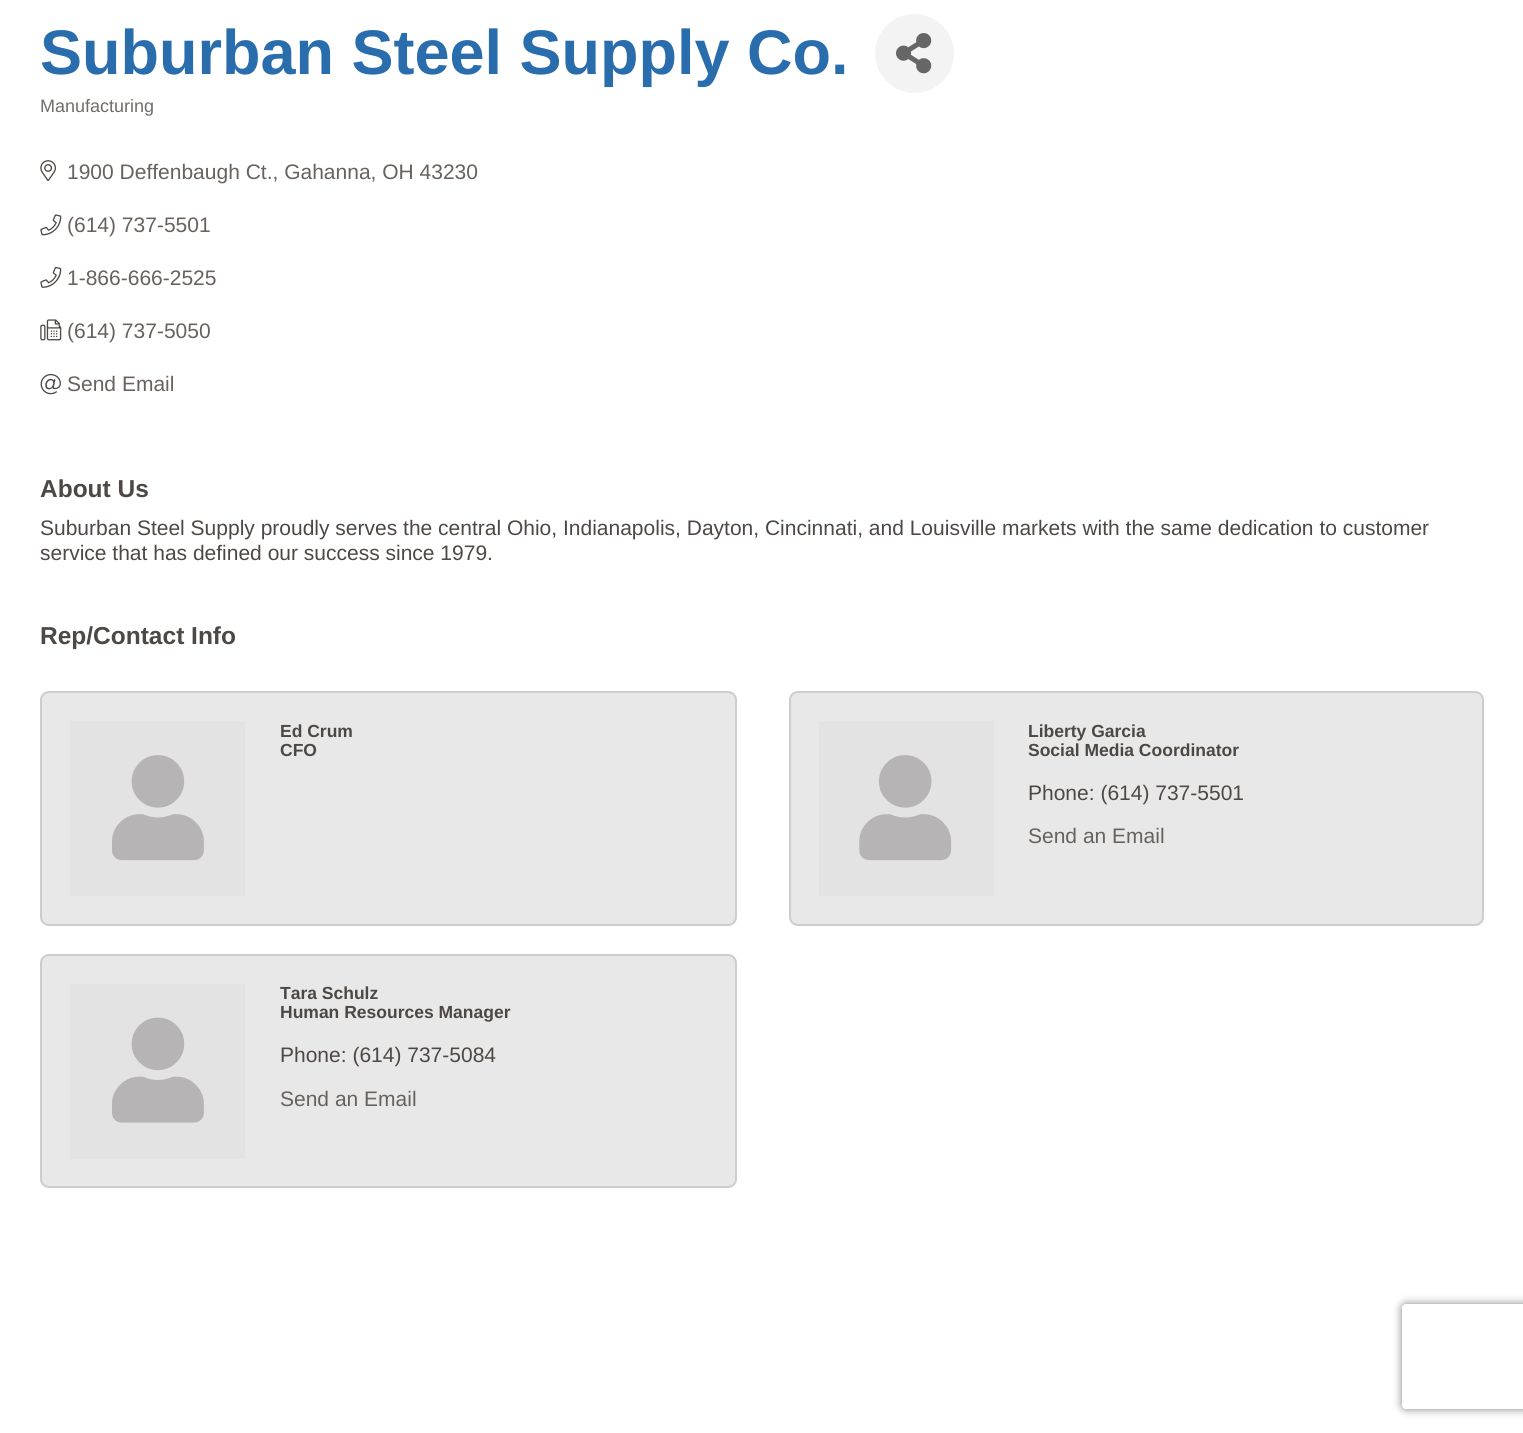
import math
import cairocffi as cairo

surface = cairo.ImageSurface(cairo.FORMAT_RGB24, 1523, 1433)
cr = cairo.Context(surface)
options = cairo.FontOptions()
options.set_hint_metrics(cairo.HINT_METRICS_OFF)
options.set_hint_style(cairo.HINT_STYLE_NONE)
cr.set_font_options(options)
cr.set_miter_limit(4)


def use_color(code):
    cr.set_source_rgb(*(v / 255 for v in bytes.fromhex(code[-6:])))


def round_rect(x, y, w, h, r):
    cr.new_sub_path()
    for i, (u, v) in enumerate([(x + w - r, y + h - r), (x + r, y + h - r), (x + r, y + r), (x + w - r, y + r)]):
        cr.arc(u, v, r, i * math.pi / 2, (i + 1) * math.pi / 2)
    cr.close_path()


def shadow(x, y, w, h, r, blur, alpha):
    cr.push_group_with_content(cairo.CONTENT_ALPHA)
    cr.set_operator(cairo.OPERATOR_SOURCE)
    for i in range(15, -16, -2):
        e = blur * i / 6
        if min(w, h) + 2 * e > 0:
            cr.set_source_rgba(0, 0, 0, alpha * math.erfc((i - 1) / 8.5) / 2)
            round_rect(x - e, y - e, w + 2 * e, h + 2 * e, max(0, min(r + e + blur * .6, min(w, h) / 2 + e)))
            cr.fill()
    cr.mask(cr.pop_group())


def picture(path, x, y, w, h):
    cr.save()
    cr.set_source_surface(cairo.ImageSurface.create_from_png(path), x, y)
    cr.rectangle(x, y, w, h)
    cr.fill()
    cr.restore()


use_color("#ffffff")
cr.paint()
cr.select_font_face("Liberation Sans", cairo.FONT_SLANT_NORMAL, cairo.FONT_WEIGHT_BOLD)
cr.set_font_size(63)
use_color("#296dac")
cr.move_to(40, 74)
cr.show_text("Suburban Steel Supply Co.")
use_color("#f3f3f3")
cr.new_path()
cr.arc(914.5, 53.5, 39.5, 0, 2 * math.pi)
cr.fill()
picture("img1.png", 896, 33, 36, 41)
cr.select_font_face("Liberation Sans")
cr.set_font_size(18)
use_color("#716d6a")
cr.move_to(40, 112)
cr.show_text("Manufacturing")
picture("img2.png", 40, 160, 16, 22)
cr.set_font_size(21)
use_color("#68615d")
cr.move_to(67, 179)
cr.show_text("1900 Deffenbaugh Ct., Gahanna, OH 43230")
picture("img3.png", 40, 214, 22, 22)
cr.move_to(67, 232)
cr.show_text("(614) 737-5501")
picture("img4.png", 40, 266, 22, 22)
cr.move_to(67, 285)
cr.show_text("1-866-666-2525")
picture("img5.png", 40, 319, 22, 22)
cr.move_to(67, 338)
cr.show_text("(614) 737-5050")
picture("img6.png", 40, 373, 21, 22)
cr.move_to(67, 391)
cr.show_text("Send Email")
cr.select_font_face("Liberation Sans", cairo.FONT_SLANT_NORMAL, cairo.FONT_WEIGHT_BOLD)
cr.set_font_size(24.5)
use_color("#4e4845")
cr.move_to(40, 497)
cr.show_text("About Us")
cr.select_font_face("Liberation Sans")
cr.set_font_size(21)
cr.move_to(40, 535)
cr.show_text("Suburban Steel Supply proudly serves the central Ohio, Indianapolis, Dayton, Cincinnati, and Louisville markets with the same dedication to customer")
cr.move_to(40, 560)
cr.show_text("service that has defined our success since 1979.")
cr.select_font_face("Liberation Sans", cairo.FONT_SLANT_NORMAL, cairo.FONT_WEIGHT_BOLD)
cr.set_font_size(24.5)
cr.move_to(40, 644)
cr.show_text("Rep/Contact Info")
use_color("#e8e8e8")
round_rect(40, 691, 697, 235, 9)
cr.fill()
round_rect(41, 692, 695, 233, 8)
cr.set_source_rgba(0, 0, 0, 0.12)
cr.stroke()
use_color("#e3e3e3")
cr.rectangle(70, 721, 175, 175)
cr.fill()
picture("img7.png", 112, 755, 92, 106)
cr.set_font_size(17.5)
use_color("#4e4845")
cr.move_to(280, 737)
cr.show_text("Ed Crum")
cr.move_to(280, 756)
cr.show_text("CFO")
use_color("#e8e8e8")
round_rect(789, 691, 695, 235, 9)
cr.fill()
round_rect(790, 692, 693, 233, 8)
cr.set_source_rgba(0, 0, 0, 0.12)
cr.stroke()
use_color("#e3e3e3")
cr.rectangle(819, 721, 175, 175)
cr.fill()
picture("img8.png", 859, 755, 93, 106)
use_color("#4e4845")
cr.move_to(1028, 737)
cr.show_text("Liberty Garcia")
cr.move_to(1028, 756)
cr.show_text("Social Media Coordinator")
cr.select_font_face("Liberation Sans")
cr.set_font_size(21)
cr.move_to(1028, 800)
cr.show_text("Phone: (614) 737-5501")
use_color("#68615d")
cr.move_to(1028, 843)
cr.show_text("Send an Email")
use_color("#e8e8e8")
round_rect(40, 954, 697, 234, 9)
cr.fill()
round_rect(41, 955, 695, 232, 8)
cr.set_source_rgba(0, 0, 0, 0.12)
cr.stroke()
use_color("#e3e3e3")
cr.rectangle(70, 984, 175, 175)
cr.fill()
picture("img9.png", 112, 1017, 92, 106)
cr.select_font_face("Liberation Sans", cairo.FONT_SLANT_NORMAL, cairo.FONT_WEIGHT_BOLD)
cr.set_font_size(17.5)
use_color("#4e4845")
cr.move_to(280, 999)
cr.show_text("Tara Schulz")
cr.move_to(280, 1018)
cr.show_text("Human Resources Manager")
cr.select_font_face("Liberation Sans")
cr.set_font_size(21)
cr.move_to(280, 1062)
cr.show_text("Phone: (614) 737-5084")
use_color("#68615d")
cr.move_to(280, 1106)
cr.show_text("Send an Email")
cr.save()
cr.set_fill_rule(cairo.FILL_RULE_EVEN_ODD)
cr.new_path()
cr.move_to(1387, 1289)
cr.line_to(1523, 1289)
cr.line_to(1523, 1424)
cr.line_to(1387, 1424)
cr.close_path()
cr.move_to(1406, 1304)
cr.line_to(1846, 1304)
cr.curve_to(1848, 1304, 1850, 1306, 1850, 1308)
cr.line_to(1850, 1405)
cr.curve_to(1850, 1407, 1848, 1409, 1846, 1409)
cr.line_to(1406, 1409)
cr.curve_to(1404, 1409, 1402, 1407, 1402, 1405)
cr.line_to(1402, 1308)
cr.curve_to(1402, 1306, 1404, 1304, 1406, 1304)
cr.close_path()
cr.clip()
use_color("#808080")
shadow(1402, 1304, 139, 105, 4, 4.5, 1)
cr.restore()
surface.write_to_png("result.png")
